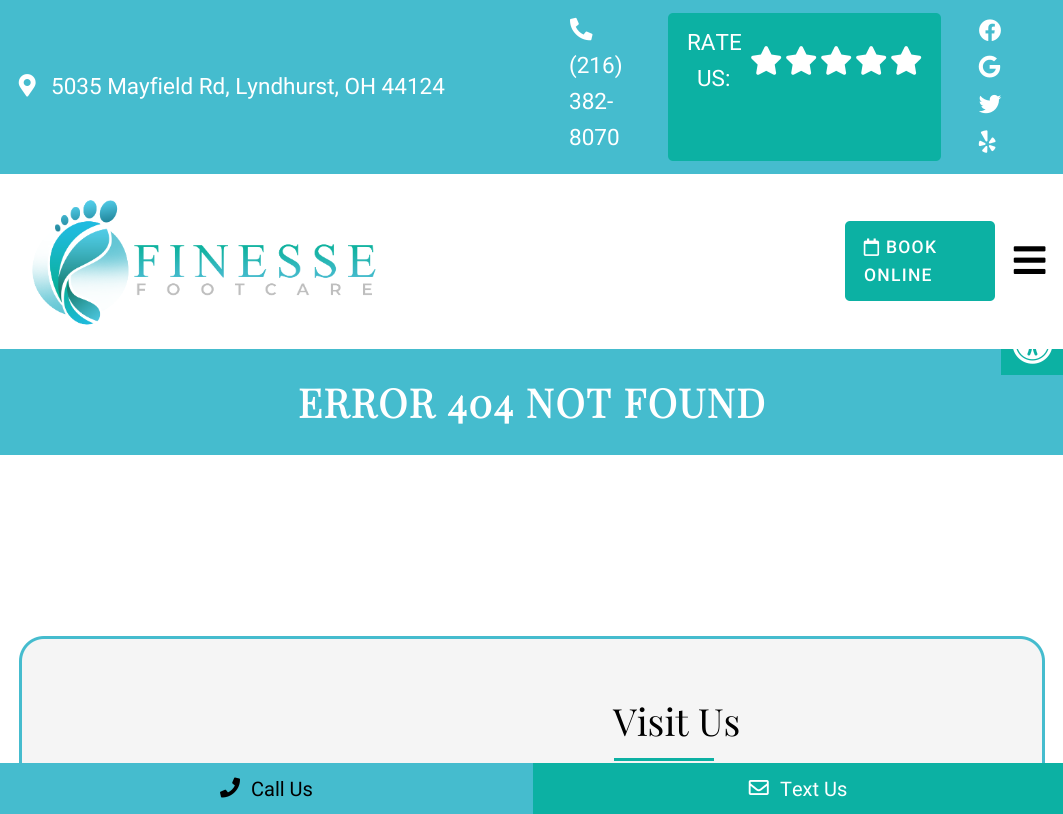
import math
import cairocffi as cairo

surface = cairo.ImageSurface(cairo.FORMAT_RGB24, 1063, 814)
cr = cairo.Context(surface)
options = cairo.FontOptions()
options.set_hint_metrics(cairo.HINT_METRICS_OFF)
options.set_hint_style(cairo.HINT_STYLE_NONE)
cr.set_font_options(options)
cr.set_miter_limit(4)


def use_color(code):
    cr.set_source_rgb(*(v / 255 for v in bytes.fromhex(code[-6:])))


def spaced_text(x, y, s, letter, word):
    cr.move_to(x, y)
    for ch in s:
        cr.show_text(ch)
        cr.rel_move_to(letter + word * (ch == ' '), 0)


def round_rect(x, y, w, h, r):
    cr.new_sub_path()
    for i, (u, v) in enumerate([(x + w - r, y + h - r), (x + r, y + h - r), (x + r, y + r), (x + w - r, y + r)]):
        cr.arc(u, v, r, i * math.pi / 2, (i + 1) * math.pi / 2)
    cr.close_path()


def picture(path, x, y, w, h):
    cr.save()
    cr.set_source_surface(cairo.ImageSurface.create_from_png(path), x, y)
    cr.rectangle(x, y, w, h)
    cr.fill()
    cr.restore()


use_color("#ffffff")
cr.paint()
use_color("#45bcce")
cr.rectangle(0, 0, 1063, 174)
cr.fill()
picture("img1.png", 18, 74, 18, 23)
cr.select_font_face("Roboto")
cr.set_font_size(22.5)
use_color("#ffffff")
cr.move_to(51, 94)
cr.show_text("5035 Mayfield Rd, Lyndhurst, OH 44124")
picture("img2.png", 570, 17, 23, 24)
cr.move_to(569, 73)
cr.show_text("(216)")
cr.move_to(569, 109)
cr.show_text("382-")
cr.move_to(569, 145)
cr.show_text("8070")
use_color("#0cb1a3")
round_rect(668, 13, 273, 148, 5)
cr.fill()
use_color("#ffffff")
cr.move_to(687, 50)
cr.show_text("RATE")
cr.move_to(697, 86)
cr.show_text("US:")
picture("img3.png", 751, 46, 31, 29)
picture("img3.png", 786, 46, 31, 29)
picture("img3.png", 821, 46, 31, 29)
picture("img3.png", 856, 46, 31, 29)
picture("img3.png", 891, 46, 31, 29)
picture("img4.png", 979, 19, 22, 22)
picture("img5.png", 978, 55, 23, 23)
picture("img6.png", 979, 94, 23, 20)
picture("img7.png", 978, 130, 18, 23)
picture("img8.png", 32, 200, 344, 125)
use_color("#0cb1a3")
round_rect(845, 221, 150, 80, 5)
cr.fill()
picture("img9.png", 863, 238, 17, 18)
cr.select_font_face("Roboto Medium")
cr.set_font_size(17.5)
use_color("#ffffff")
spaced_text(886, 253, "BOOK", 1.25, 0)
spaced_text(864, 281, "ONLINE", 1.25, 0)
picture("img10.png", 1013, 246, 33, 28)
use_color("#45bcce")
cr.rectangle(0, 349, 1063, 106)
cr.fill()
cr.select_font_face("Playfair Display", cairo.FONT_SLANT_NORMAL, cairo.FONT_WEIGHT_BOLD)
cr.set_font_size(40)
use_color("#ffffff")
spaced_text(298, 418, "ERROR 404 NOT FOUND", 1.25, 0)
use_color("#f5f5f5")
round_rect(20.5, 637.5, 1023, 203, 23.5)
cr.fill_preserve()
use_color("#45bcce")
cr.set_line_width(3)
cr.stroke()
cr.select_font_face("Playfair Display")
cr.set_font_size(37.5)
use_color("#000000")
cr.move_to(613, 736)
cr.show_text("Visit Us")
use_color("#0cb1a3")
cr.rectangle(614, 758, 100, 3)
cr.fill()
cr.rectangle(1001, 349, 62, 26)
cr.fill()
picture("img11.png", 1013, 349, 39, 15)
use_color("#45bcce")
cr.rectangle(0, 763, 533, 51)
cr.fill()
picture("img12.png", 220, 777, 20, 21)
cr.select_font_face("Roboto")
cr.set_font_size(20)
use_color("#000000")
cr.move_to(251, 796)
cr.show_text("Call Us")
use_color("#0cb1a3")
cr.rectangle(533, 763, 530, 51)
cr.fill()
picture("img13.png", 748, 780, 21, 15)
use_color("#ffffff")
cr.move_to(780, 796)
cr.show_text("Text Us")
surface.write_to_png("result.png")
